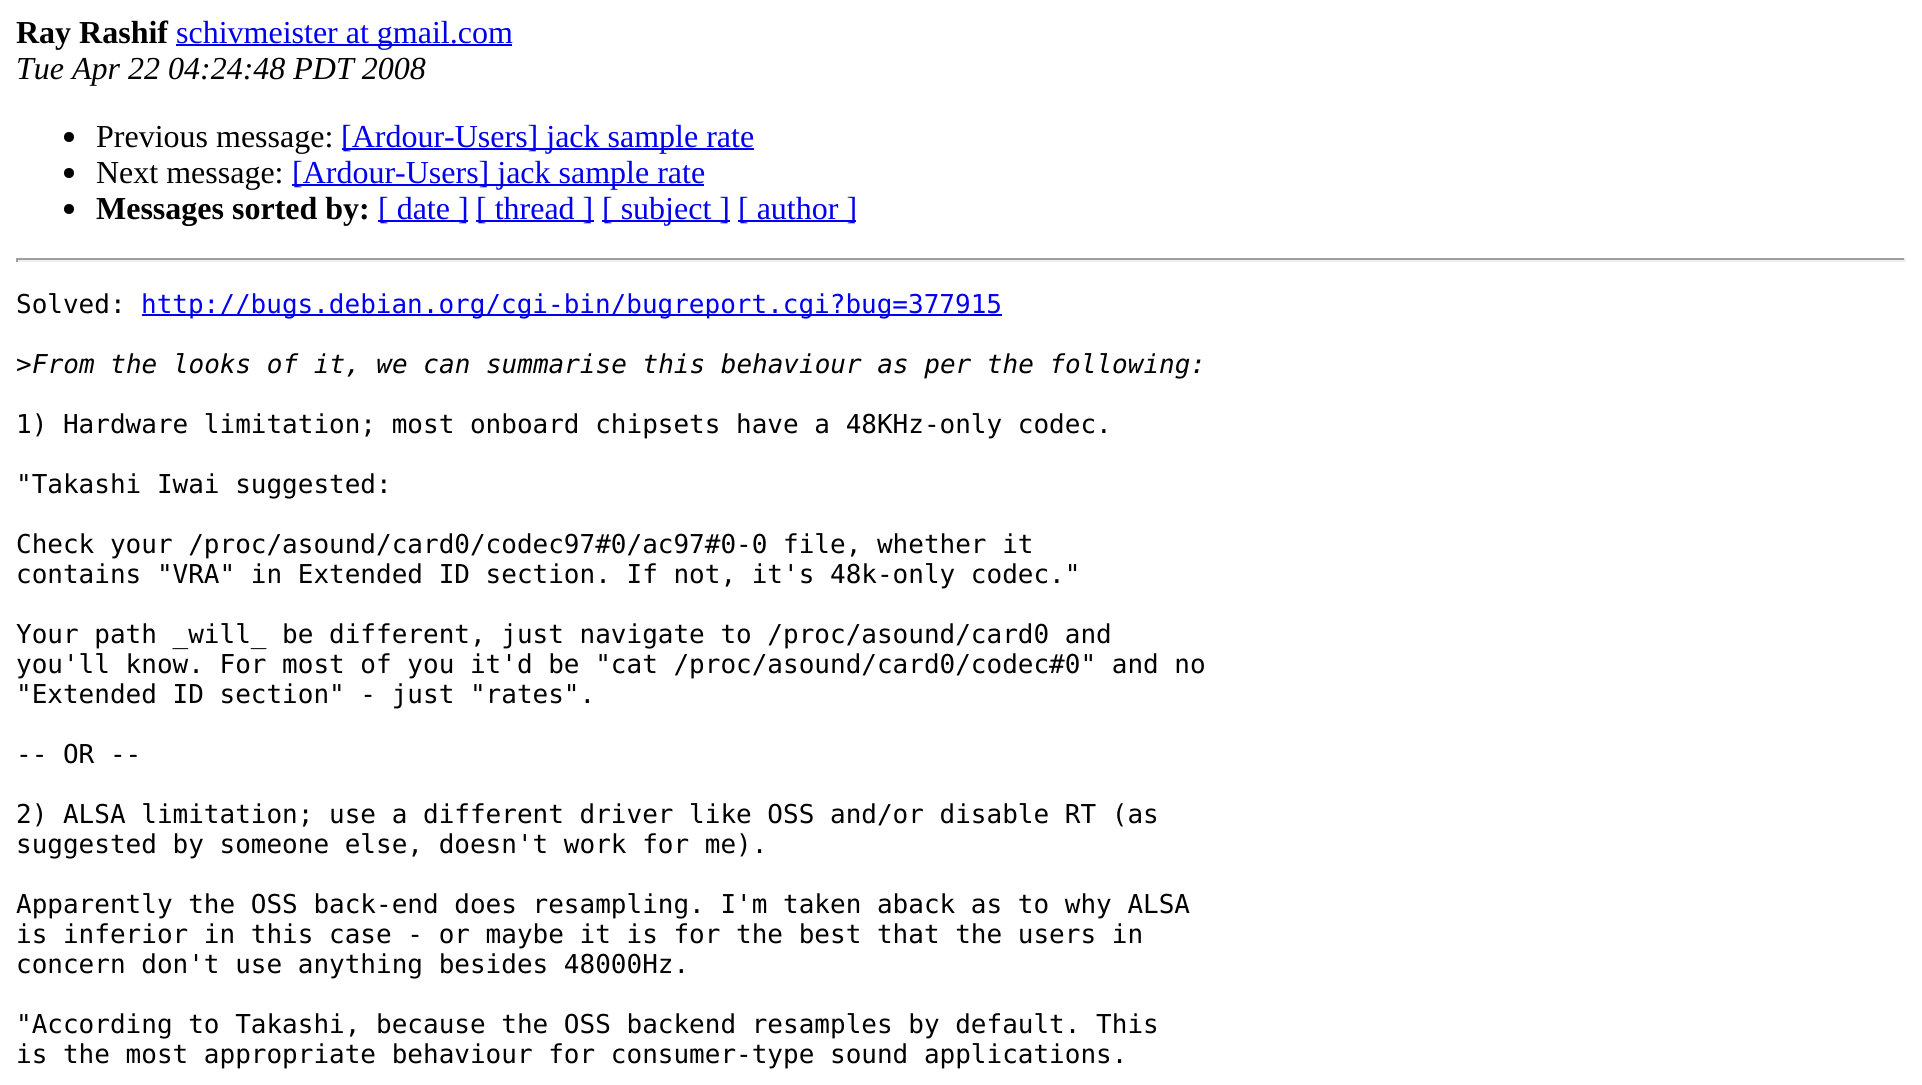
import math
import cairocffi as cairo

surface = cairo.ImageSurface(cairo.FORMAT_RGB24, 1922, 1085)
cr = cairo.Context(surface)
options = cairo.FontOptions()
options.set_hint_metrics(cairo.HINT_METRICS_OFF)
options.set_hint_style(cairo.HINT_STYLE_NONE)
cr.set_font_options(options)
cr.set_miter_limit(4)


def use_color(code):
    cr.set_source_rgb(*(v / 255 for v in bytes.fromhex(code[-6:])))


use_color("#ffffff")
cr.paint()
cr.select_font_face("Liberation Serif", cairo.FONT_SLANT_NORMAL, cairo.FONT_WEIGHT_BOLD)
cr.set_font_size(32)
use_color("#000000")
cr.move_to(16, 43)
cr.show_text("Ray Rashif")
use_color("#0000ee")
cr.rectangle(176, 44, 336, 2)
cr.fill()
cr.select_font_face("Liberation Serif")
cr.move_to(176, 43)
cr.show_text("schivmeister at gmail.com")
cr.select_font_face("Liberation Serif", cairo.FONT_SLANT_ITALIC)
use_color("#000000")
cr.move_to(16, 79)
cr.show_text("Tue Apr 22 04:24:48 PDT 2008")
cr.new_path()
cr.arc(69, 137, 5, 0, 2 * math.pi)
cr.fill()
cr.select_font_face("Liberation Serif")
cr.move_to(96, 147)
cr.show_text("Previous message:")
use_color("#0000ee")
cr.rectangle(342, 148, 412, 2)
cr.fill()
cr.move_to(341, 147)
cr.show_text("[Ardour-Users] jack sample rate")
use_color("#000000")
cr.new_path()
cr.arc(69, 173, 5, 0, 2 * math.pi)
cr.fill()
cr.move_to(96, 183)
cr.show_text("Next message:")
use_color("#0000ee")
cr.rectangle(292, 184, 412, 2)
cr.fill()
cr.move_to(292, 183)
cr.show_text("[Ardour-Users] jack sample rate")
use_color("#000000")
cr.new_path()
cr.arc(69, 209, 5, 0, 2 * math.pi)
cr.fill()
cr.select_font_face("Liberation Serif", cairo.FONT_SLANT_NORMAL, cairo.FONT_WEIGHT_BOLD)
cr.move_to(96, 219)
cr.show_text("Messages sorted by:")
use_color("#0000ee")
cr.rectangle(378, 220, 90, 2)
cr.fill()
cr.select_font_face("Liberation Serif")
cr.move_to(378, 219)
cr.show_text("[ date ]")
cr.rectangle(476, 220, 118, 2)
cr.fill()
cr.move_to(476, 219)
cr.show_text("[ thread ]")
cr.rectangle(602, 220, 128, 2)
cr.fill()
cr.move_to(602, 219)
cr.show_text("[ subject ]")
cr.rectangle(738, 220, 118, 2)
cr.fill()
cr.move_to(738, 219)
cr.show_text("[ author ]")
use_color("#9f9f9f")
cr.rectangle(16, 258, 1890, 2)
cr.fill()
use_color("#eeeeee")
cr.rectangle(1904, 258, 2, 4)
cr.fill()
cr.rectangle(16, 260, 1890, 2)
cr.fill()
use_color("#9f9f9f")
cr.rectangle(16, 258, 2, 4)
cr.fill()
cr.select_font_face("DejaVu Sans Mono")
cr.set_font_size(26)
use_color("#000000")
cr.move_to(16, 313)
cr.show_text("Solved:")
use_color("#0000ee")
cr.rectangle(142, 314, 860, 2)
cr.fill()
cr.move_to(141, 313)
cr.show_text("http://bugs.debian.org/cgi-bin/bugreport.cgi?bug=377915")
use_color("#000000")
cr.move_to(16, 373)
cr.show_text(">")
cr.select_font_face("DejaVu Sans Mono", cairo.FONT_SLANT_ITALIC)
cr.move_to(32, 373)
cr.show_text("From the looks of it, we can summarise this behaviour as per the following:")
cr.select_font_face("DejaVu Sans Mono")
cr.move_to(16, 433)
cr.show_text("1) Hardware limitation; most onboard chipsets have a 48KHz-only codec.")
cr.move_to(16, 493)
cr.show_text("\"Takashi Iwai suggested:")
cr.move_to(16, 553)
cr.show_text("Check your /proc/asound/card0/codec97#0/ac97#0-0 file, whether it")
cr.move_to(16, 583)
cr.show_text("contains \"VRA\" in Extended ID section. If not, it's 48k-only codec.\"")
cr.move_to(16, 643)
cr.show_text("Your path _will_ be different, just navigate to /proc/asound/card0 and")
cr.move_to(16, 673)
cr.show_text("you'll know. For most of you it'd be \"cat /proc/asound/card0/codec#0\" and no")
cr.move_to(16, 703)
cr.show_text("\"Extended ID section\" - just \"rates\".")
cr.move_to(16, 763)
cr.show_text("-- OR --")
cr.move_to(16, 823)
cr.show_text("2) ALSA limitation; use a different driver like OSS and/or disable RT (as")
cr.move_to(16, 853)
cr.show_text("suggested by someone else, doesn't work for me).")
cr.move_to(16, 913)
cr.show_text("Apparently the OSS back-end does resampling. I'm taken aback as to why ALSA")
cr.move_to(16, 943)
cr.show_text("is inferior in this case - or maybe it is for the best that the users in")
cr.move_to(16, 973)
cr.show_text("concern don't use anything besides 48000Hz.")
cr.move_to(16, 1033)
cr.show_text("\"According to Takashi, because the OSS backend resamples by default. This")
cr.move_to(16, 1063)
cr.show_text("is the most appropriate behaviour for consumer-type sound applications.")
surface.write_to_png("result.png")
